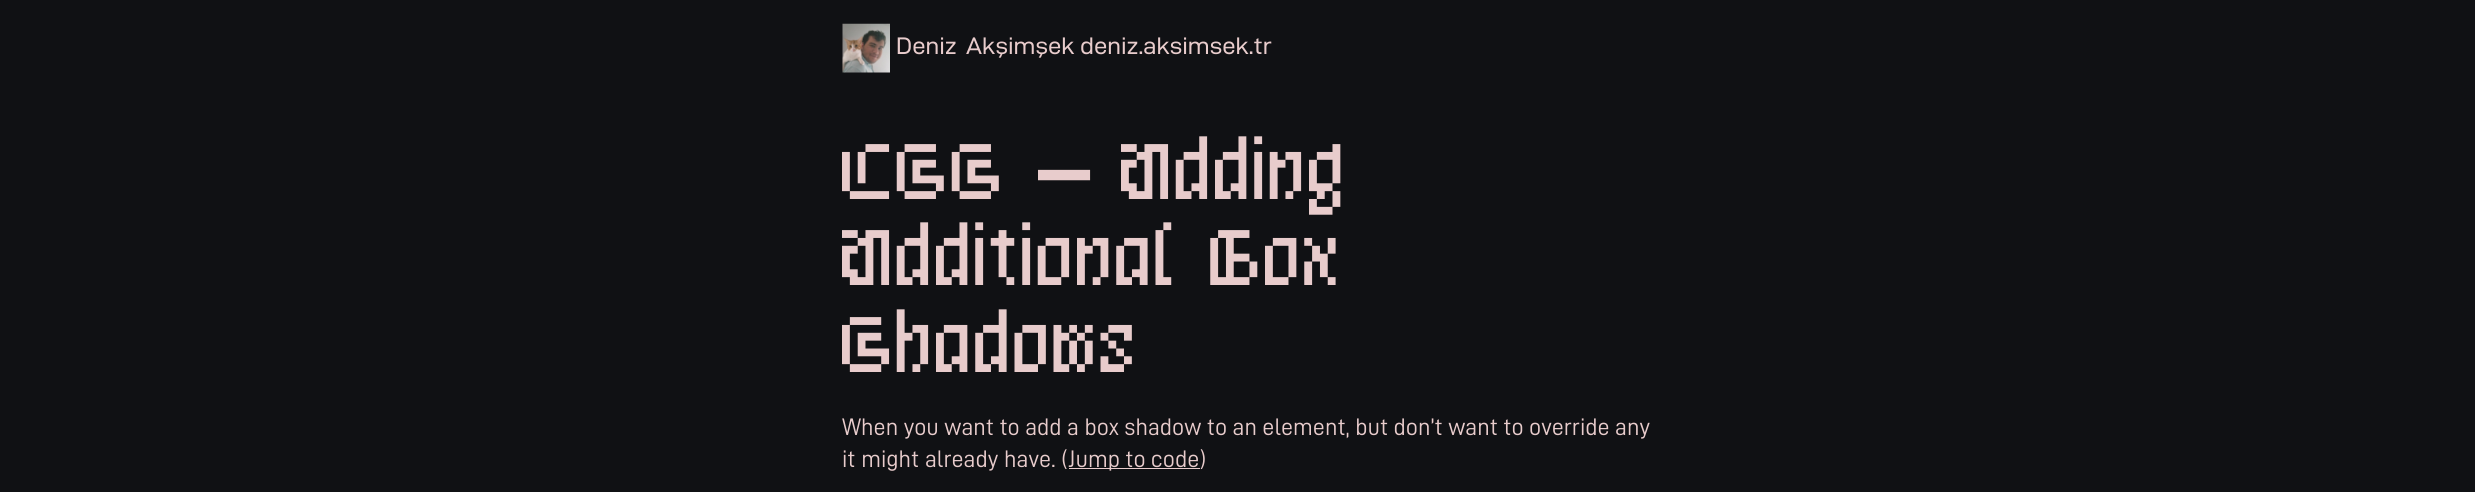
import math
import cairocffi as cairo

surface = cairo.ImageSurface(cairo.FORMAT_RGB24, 2475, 492)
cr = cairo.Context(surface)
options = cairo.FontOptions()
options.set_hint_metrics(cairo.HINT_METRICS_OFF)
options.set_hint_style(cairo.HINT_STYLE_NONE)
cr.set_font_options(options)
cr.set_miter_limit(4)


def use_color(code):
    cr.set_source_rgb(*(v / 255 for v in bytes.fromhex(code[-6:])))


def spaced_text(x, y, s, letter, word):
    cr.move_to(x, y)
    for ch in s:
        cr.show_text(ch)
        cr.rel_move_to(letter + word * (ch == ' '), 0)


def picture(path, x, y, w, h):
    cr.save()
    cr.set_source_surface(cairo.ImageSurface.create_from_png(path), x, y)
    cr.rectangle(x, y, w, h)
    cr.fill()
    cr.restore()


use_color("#101114")
cr.paint()
picture("img1.png", 842, 23, 48, 50)
cr.select_font_face("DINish")
cr.set_font_size(24)
use_color("#e8cccc")
spaced_text(896, 54, "Deniz Akşimşek", 0, 4)
cr.move_to(1080, 54)
cr.show_text("deniz.aksimsek.tr")
cr.select_font_face("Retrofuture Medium")
cr.set_font_size(86.5)
cr.move_to(842, 199)
cr.show_text("CSS")
cr.select_font_face("DejaVu Sans Mono", cairo.FONT_SLANT_NORMAL, cairo.FONT_WEIGHT_BOLD)
cr.move_to(1038, 199)
cr.show_text("—")
cr.select_font_face("Retrofuture Medium")
cr.move_to(1121, 199)
cr.show_text("Adding")
cr.move_to(842, 285)
cr.show_text("Additional Box")
cr.move_to(842, 372)
cr.show_text("Shadows")
cr.select_font_face("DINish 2")
cr.set_font_size(24)
spaced_text(842, 435, "When you want to add a box shadow to an element, but don’t want to override any", 0, 0.25)
spaced_text(842, 467, "it might already have. (", 0, 0.5)
cr.rectangle(1069, 468, 131, 1)
cr.fill()
cr.move_to(1068, 467)
cr.show_text("Jump to code)")
surface.write_to_png("result.png")
